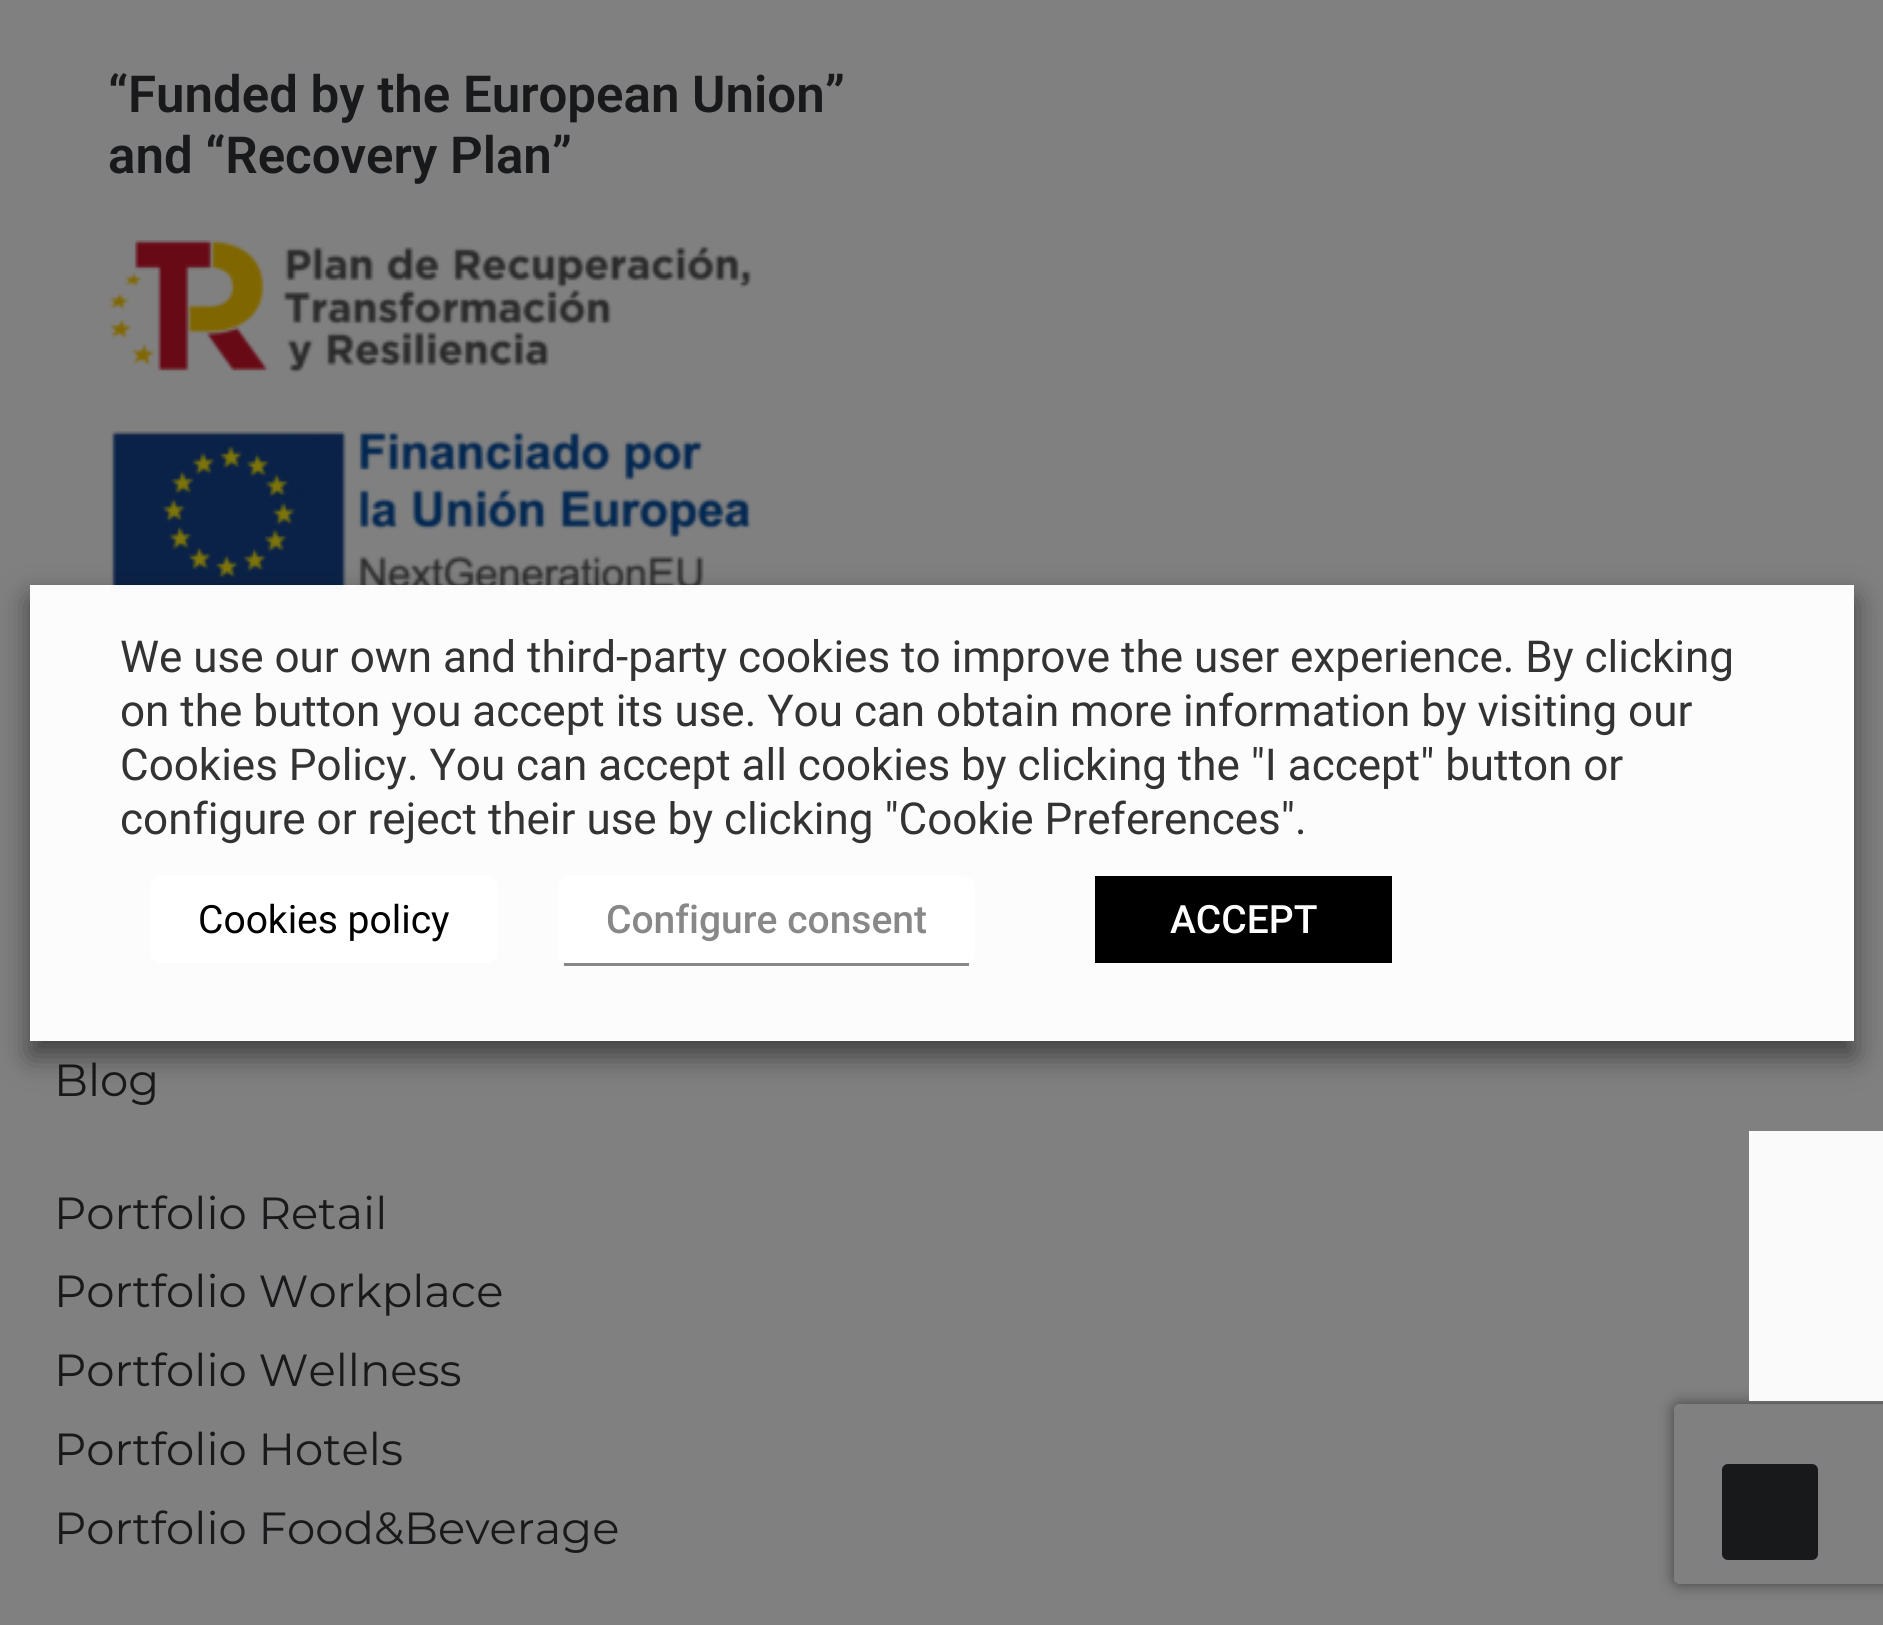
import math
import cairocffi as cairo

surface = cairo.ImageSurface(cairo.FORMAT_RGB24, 1883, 1625)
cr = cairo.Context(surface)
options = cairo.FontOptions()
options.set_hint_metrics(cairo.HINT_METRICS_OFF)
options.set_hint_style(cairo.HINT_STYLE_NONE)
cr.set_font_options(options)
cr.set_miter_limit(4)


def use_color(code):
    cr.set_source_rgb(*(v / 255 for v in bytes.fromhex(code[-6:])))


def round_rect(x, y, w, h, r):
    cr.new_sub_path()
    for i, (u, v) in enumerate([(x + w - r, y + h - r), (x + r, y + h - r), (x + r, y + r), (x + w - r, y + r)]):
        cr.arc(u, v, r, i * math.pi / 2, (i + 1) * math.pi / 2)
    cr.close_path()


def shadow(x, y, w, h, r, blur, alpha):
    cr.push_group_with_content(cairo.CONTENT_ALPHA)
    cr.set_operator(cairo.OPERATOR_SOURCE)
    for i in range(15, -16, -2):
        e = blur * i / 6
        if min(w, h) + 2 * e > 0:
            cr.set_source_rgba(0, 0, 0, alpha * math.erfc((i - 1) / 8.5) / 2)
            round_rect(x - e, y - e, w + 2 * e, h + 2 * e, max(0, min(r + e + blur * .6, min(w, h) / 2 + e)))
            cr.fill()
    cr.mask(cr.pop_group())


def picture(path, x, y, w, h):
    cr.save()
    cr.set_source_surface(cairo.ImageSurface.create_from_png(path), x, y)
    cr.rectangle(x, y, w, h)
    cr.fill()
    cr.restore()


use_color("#808080")
cr.paint()
cr.select_font_face("Roboto SemiBold")
cr.set_font_size(51)
use_color("#18191a")
cr.move_to(108, 112)
cr.show_text("“Funded by the European Union”")
cr.move_to(108, 173)
cr.show_text("and “Recovery Plan”")
picture("img1.png", 108, 240, 644, 133)
picture("img2.png", 110, 431, 641, 162)
cr.select_font_face("Montserrat")
cr.set_font_size(45)
cr.move_to(54, 1096)
cr.show_text("Blog")
cr.move_to(54, 1229)
cr.show_text("Portfolio Retail")
cr.move_to(54, 1307)
cr.show_text("Portfolio Workplace")
cr.move_to(54, 1386)
cr.show_text("Portfolio Wellness")
cr.move_to(54, 1465)
cr.show_text("Portfolio Hotels")
cr.move_to(54, 1544)
cr.show_text("Portfolio Food&Beverage")
cr.save()
cr.set_fill_rule(cairo.FILL_RULE_EVEN_ODD)
cr.new_path()
cr.move_to(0, 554)
cr.line_to(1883, 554)
cr.line_to(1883, 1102)
cr.line_to(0, 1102)
cr.close_path()
cr.move_to(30, 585)
cr.line_to(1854, 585)
cr.line_to(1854, 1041)
cr.line_to(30, 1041)
cr.close_path()
cr.clip()
use_color("#000000")
shadow(30, 600, 1824, 456, 0, 15, 0.5)
cr.restore()
cr.set_source_rgba(1, 1, 1, 0.97)
cr.rectangle(30, 585, 1824, 456)
cr.fill()
cr.select_font_face("Roboto")
cr.set_font_size(44)
use_color("#333333")
cr.move_to(120, 672)
cr.show_text("We use our own and third-party cookies to improve the user experience. By clicking")
cr.move_to(120, 726)
cr.show_text("on the button you accept its use. You can obtain more information by visiting our")
cr.move_to(120, 780)
cr.show_text("Cookies Policy. You can accept all cookies by clicking the \"I accept\" button or")
cr.move_to(120, 834)
cr.show_text("configure or reject their use by clicking \"Cookie Preferences\".")
use_color("#ffffff")
round_rect(150, 876, 348, 87, 12)
cr.fill()
cr.set_font_size(39)
use_color("#000000")
cr.move_to(198, 933)
cr.show_text("Cookies policy")
use_color("#ffffff")
round_rect(558, 876, 417, 90, 12)
cr.fill()
use_color("#898888")
cr.rectangle(564, 963, 405, 3)
cr.fill()
cr.select_font_face("Roboto Medium")
cr.move_to(606, 933)
cr.show_text("Configure consent")
use_color("#000000")
cr.rectangle(1095, 876, 297, 87)
cr.fill()
use_color("#ffffff")
cr.move_to(1170, 933)
cr.show_text("ACCEPT")
cr.save()
cr.set_fill_rule(cairo.FILL_RULE_EVEN_ODD)
cr.new_path()
cr.move_to(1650, 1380)
cr.line_to(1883, 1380)
cr.line_to(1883, 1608)
cr.line_to(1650, 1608)
cr.close_path()
cr.move_to(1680, 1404)
cr.line_to(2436, 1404)
cr.curve_to(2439.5, 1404, 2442, 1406.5, 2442, 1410)
cr.line_to(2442, 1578)
cr.curve_to(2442, 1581.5, 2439.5, 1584, 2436, 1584)
cr.line_to(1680, 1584)
cr.curve_to(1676.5, 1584, 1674, 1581.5, 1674, 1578)
cr.line_to(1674, 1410)
cr.curve_to(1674, 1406.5, 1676.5, 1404, 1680, 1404)
cr.close_path()
cr.clip()
use_color("#404040")
shadow(1674, 1404, 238, 180, 6, 7.5, 1)
cr.restore()
use_color("#fafafa")
cr.rectangle(1749, 1131, 134, 270)
cr.fill()
use_color("#18191a")
round_rect(1723.5, 1465.5, 93, 93, 4.5)
cr.fill_preserve()
cr.set_line_width(3)
cr.stroke()
surface.write_to_png("result.png")
